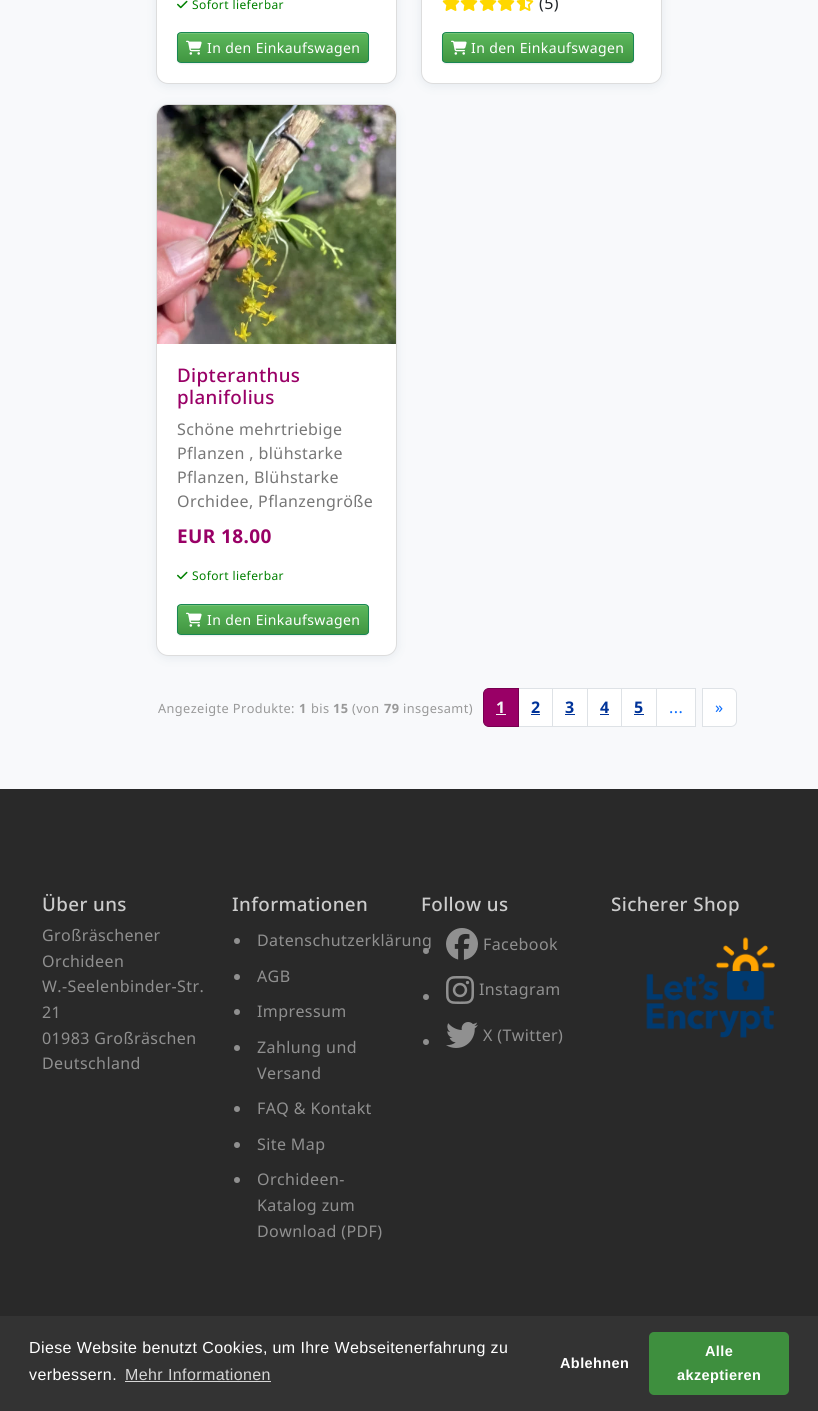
import math
import cairocffi as cairo

surface = cairo.ImageSurface(cairo.FORMAT_RGB24, 818, 1411)
cr = cairo.Context(surface)
options = cairo.FontOptions()
options.set_hint_metrics(cairo.HINT_METRICS_OFF)
options.set_hint_style(cairo.HINT_STYLE_NONE)
cr.set_font_options(options)
cr.set_miter_limit(4)


def use_color(code):
    cr.set_source_rgb(*(v / 255 for v in bytes.fromhex(code[-6:])))


def spaced_text(x, y, s, letter, word):
    cr.move_to(x, y)
    for ch in s:
        cr.show_text(ch)
        cr.rel_move_to(letter + word * (ch == ' '), 0)


def round_rect(x, y, w, h, r):
    cr.new_sub_path()
    for i, (u, v) in enumerate([(x + w - r, y + h - r), (x + r, y + h - r), (x + r, y + r), (x + w - r, y + r)]):
        cr.arc(u, v, r, i * math.pi / 2, (i + 1) * math.pi / 2)
    cr.close_path()


def shadow(x, y, w, h, r, blur, alpha):
    cr.push_group_with_content(cairo.CONTENT_ALPHA)
    cr.set_operator(cairo.OPERATOR_SOURCE)
    for i in range(15, -16, -2):
        e = blur * i / 6
        if min(w, h) + 2 * e > 0:
            cr.set_source_rgba(0, 0, 0, alpha * math.erfc((i - 1) / 8.5) / 2)
            round_rect(x - e, y - e, w + 2 * e, h + 2 * e, max(0, min(r + e + blur * .6, min(w, h) / 2 + e)))
            cr.fill()
    cr.mask(cr.pop_group())


def picture(path, x, y, w, h):
    cr.save()
    cr.set_source_surface(cairo.ImageSurface.create_from_png(path), x, y)
    cr.rectangle(x, y, w, h)
    cr.fill()
    cr.restore()


use_color("#f8f9fb")
cr.paint()
use_color("#396178")
shadow(156, -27, 241, 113, 12, 5, 0.1)
use_color("#ffffff")
round_rect(156.5, -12.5, 240, 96, 11.5)
cr.fill_preserve()
use_color("#dddddd")
cr.set_line_width(1)
cr.stroke()
picture("img1.png", 177, 0, 11, 9)
cr.select_font_face("Noto Sans")
cr.set_font_size(12)
use_color("#008000")
spaced_text(192, 9, "Sofort lieferbar", 0.4, 0)
use_color("#000000")
shadow(177, 33, 192, 31, 4, 0.5, 0.07)
cr.save()
round_rect(177, 32, 192, 31, 4)
cr.clip()
gradient = cairo.LinearGradient(273, 33, 273, 62)
gradient.add_color_stop_rgba(0, 0.361, 0.722, 0.361, 1)
gradient.add_color_stop_rgba(1, 0.255, 0.588, 0.255, 1)
cr.set_source(gradient)
cr.rectangle(177, 33, 192, 29)
cr.fill()
cr.restore()
use_color("#74c274")
cr.new_path()
cr.move_to(181, 34)
cr.line_to(365, 34)
cr.curve_to(367, 34, 368, 35, 368, 37)
cr.curve_to(368, 35, 367, 33, 365, 33)
cr.line_to(181, 33)
cr.curve_to(179, 33, 178, 35, 178, 37)
cr.curve_to(178, 35, 179, 34, 181, 34)
cr.close_path()
cr.fill()
round_rect(177.5, 32.5, 191, 30, 3.5)
use_color("#198754")
cr.stroke()
picture("img2.png", 186, 40, 16, 15)
cr.set_font_size(14)
use_color("#ffffff")
spaced_text(207, 53, "In den Einkaufswagen", 0.4, 0)
use_color("#396178")
shadow(421, -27, 241, 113, 12, 5, 0.1)
use_color("#ffffff")
round_rect(421.5, -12.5, 240, 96, 11.5)
cr.fill_preserve()
use_color("#dddddd")
cr.stroke()
picture("img3.png", 442, 0, 18, 11)
picture("img3.png", 460, 0, 18, 11)
picture("img3.png", 479, 0, 18, 11)
picture("img3.png", 497, 0, 18, 11)
picture("img4.png", 516, 0, 18, 11)
cr.set_font_size(16)
use_color("#212529")
spaced_text(539, 9, "(5)", 0.4, 0)
use_color("#000000")
shadow(442, 33, 192, 31, 4, 0.5, 0.07)
cr.save()
round_rect(442, 32, 192, 31, 4)
cr.clip()
gradient = cairo.LinearGradient(538, 33, 538, 62)
gradient.add_color_stop_rgba(0, 0.361, 0.722, 0.361, 1)
gradient.add_color_stop_rgba(1, 0.255, 0.588, 0.255, 1)
cr.set_source(gradient)
cr.rectangle(442, 33, 192, 29)
cr.fill()
cr.restore()
use_color("#74c274")
cr.new_path()
cr.move_to(446, 34)
cr.line_to(630, 34)
cr.curve_to(632, 34, 633, 35, 633, 37)
cr.curve_to(633, 35, 632, 33, 630, 33)
cr.line_to(446, 33)
cr.curve_to(444, 33, 443, 35, 443, 37)
cr.curve_to(443, 35, 444, 34, 446, 34)
cr.close_path()
cr.fill()
round_rect(442.5, 32.5, 191, 30, 3.5)
use_color("#198754")
cr.stroke()
picture("img2.png", 451, 40, 16, 15)
cr.set_font_size(14)
use_color("#ffffff")
spaced_text(471, 53, "In den Einkaufswagen", 0.4, 0)
use_color("#396178")
shadow(156, 106, 241, 552, 12, 5, 0.1)
use_color("#ffffff")
round_rect(156.5, 104.5, 240, 551, 11.5)
cr.fill_preserve()
use_color("#dddddd")
cr.stroke()
picture("img5.png", 157, 105, 239, 239)
cr.select_font_face("Noto Sans Medium")
cr.set_font_size(18.75)
use_color("#990066")
spaced_text(177, 382, "Dipteranthus", 0.4, 0)
spaced_text(177, 404, "planifolius", 0.4, 0)
cr.select_font_face("Noto Sans")
cr.set_font_size(16)
use_color("#767676")
spaced_text(177, 435, "Schöne mehrtriebige", 0.4, 0)
spaced_text(177, 459, "Pflanzen , blühstarke", 0.4, 0)
spaced_text(177, 483, "Pflanzen, Blühstarke", 0.4, 0)
spaced_text(177, 507, "Orchidee, Pflanzengröße", 0.4, 0)
cr.select_font_face("Noto Sans", cairo.FONT_SLANT_NORMAL, cairo.FONT_WEIGHT_BOLD)
cr.set_font_size(19)
use_color("#990066")
spaced_text(177, 543, "EUR 18.00", 0.4, 0)
picture("img1.png", 177, 571, 11, 9)
cr.select_font_face("Noto Sans")
cr.set_font_size(12)
use_color("#008000")
spaced_text(192, 580, "Sofort lieferbar", 0.4, 0)
use_color("#000000")
shadow(177, 605, 192, 31, 4, 0.5, 0.07)
cr.save()
round_rect(177, 604, 192, 31, 4)
cr.clip()
gradient = cairo.LinearGradient(273, 605, 273, 634)
gradient.add_color_stop_rgba(0, 0.361, 0.722, 0.361, 1)
gradient.add_color_stop_rgba(1, 0.255, 0.588, 0.255, 1)
cr.set_source(gradient)
cr.rectangle(177, 605, 192, 29)
cr.fill()
cr.restore()
use_color("#74c274")
cr.new_path()
cr.move_to(181, 606)
cr.line_to(365, 606)
cr.curve_to(367, 606, 368, 607, 368, 609)
cr.curve_to(368, 607, 367, 605, 365, 605)
cr.line_to(181, 605)
cr.curve_to(179, 605, 178, 607, 178, 609)
cr.curve_to(178, 607, 179, 606, 181, 606)
cr.close_path()
cr.fill()
round_rect(177.5, 604.5, 191, 30, 3.5)
use_color("#198754")
cr.stroke()
picture("img2.png", 186, 612, 16, 15)
cr.set_font_size(14)
use_color("#ffffff")
spaced_text(207, 625, "In den Einkaufswagen", 0.4, 0)
cr.set_font_size(12.75)
use_color("#999999")
spaced_text(158, 713, "Angezeigte Produkte:", 0.4, 0)
cr.select_font_face("Noto Sans", cairo.FONT_SLANT_NORMAL, cairo.FONT_WEIGHT_BOLD)
spaced_text(299, 713, "1", 0.4, 0)
cr.select_font_face("Noto Sans")
spaced_text(311, 713, "bis", 0.4, 0)
cr.select_font_face("Noto Sans", cairo.FONT_SLANT_NORMAL, cairo.FONT_WEIGHT_BOLD)
spaced_text(333, 713, "15", 0.4, 0)
cr.select_font_face("Noto Sans")
spaced_text(352, 713, "(von", 0.4, 0)
cr.select_font_face("Noto Sans", cairo.FONT_SLANT_NORMAL, cairo.FONT_WEIGHT_BOLD)
spaced_text(384, 713, "79", 0.4, 0)
cr.select_font_face("Noto Sans")
spaced_text(403, 713, "insgesamt)", 0.4, 0)
use_color("#ffffff")
cr.rectangle(518.5, 688.5, 34, 38)
cr.fill_preserve()
use_color("#dee2e6")
cr.stroke()
use_color("#990066")
cr.new_path()
cr.move_to(489, 688.5)
cr.line_to(518.5, 688.5)
cr.line_to(518.5, 726.5)
cr.line_to(489, 726.5)
cr.curve_to(486, 726.5, 483.5, 724, 483.5, 721)
cr.line_to(483.5, 694)
cr.curve_to(483.5, 691, 486, 688.5, 489, 688.5)
cr.close_path()
cr.fill_preserve()
use_color("#770050")
cr.stroke()
cr.select_font_face("Noto Sans", cairo.FONT_SLANT_NORMAL, cairo.FONT_WEIGHT_BOLD)
cr.set_font_size(16)
use_color("#f5f5f5")
spaced_text(496, 713, "1", 0.4, 0)
cr.rectangle(496, 714, 10, 1)
cr.fill()
use_color("#003399")
spaced_text(531, 713, "2", 0.4, 0)
cr.rectangle(531, 714, 9, 1)
cr.fill()
use_color("#ffffff")
cr.rectangle(552.5, 688.5, 35, 38)
cr.fill_preserve()
use_color("#dee2e6")
cr.stroke()
use_color("#003399")
spaced_text(565, 713, "3", 0.4, 0)
cr.rectangle(565, 714, 10, 1)
cr.fill()
use_color("#ffffff")
cr.rectangle(587.5, 688.5, 34, 38)
cr.fill_preserve()
use_color("#dee2e6")
cr.stroke()
use_color("#003399")
spaced_text(600, 713, "4", 0.4, 0)
cr.rectangle(600, 714, 9, 1)
cr.fill()
use_color("#ffffff")
cr.rectangle(621.5, 688.5, 35, 38)
cr.fill_preserve()
use_color("#dee2e6")
cr.stroke()
use_color("#003399")
spaced_text(634, 713, "5", 0.4, 0)
cr.rectangle(634, 714, 10, 1)
cr.fill()
use_color("#ffffff")
cr.rectangle(656.5, 688.5, 39, 38)
cr.fill_preserve()
use_color("#dee2e6")
cr.stroke()
cr.select_font_face("Noto Sans")
use_color("#0d6efd")
spaced_text(669, 713, "...", 0.4, 0)
use_color("#ffffff")
cr.new_path()
cr.move_to(702.5, 688.5)
cr.line_to(731, 688.5)
cr.curve_to(734, 688.5, 736.5, 691, 736.5, 694)
cr.line_to(736.5, 721)
cr.curve_to(736.5, 724, 734, 726.5, 731, 726.5)
cr.line_to(702.5, 726.5)
cr.close_path()
cr.fill_preserve()
use_color("#dee2e6")
cr.stroke()
use_color("#0d6efd")
spaced_text(715, 713, "»", 0.4, 0)
use_color("#292929")
cr.rectangle(0, 789, 818, 527)
cr.fill()
cr.select_font_face("Noto Sans Medium")
cr.set_font_size(18.75)
use_color("#cccccc")
spaced_text(42, 911, "Über uns", 0.4, 0)
cr.select_font_face("Noto Sans")
cr.set_font_size(16)
use_color("#909090")
spaced_text(42, 941, "Großräschener", 0.4, 0)
spaced_text(42, 967, "Orchideen", 0.4, 0)
spaced_text(42, 992, "W.-Seelenbinder-Str.", 0.4, 0)
spaced_text(42, 1018, "21", 0.4, 0)
spaced_text(42, 1044, "01983 Großräschen", 0.4, 0)
spaced_text(42, 1069, "Deutschland", 0.4, 0)
cr.select_font_face("Noto Sans Medium")
cr.set_font_size(18.75)
use_color("#cccccc")
spaced_text(232, 911, "Informationen", 0.4, 0)
use_color("#909090")
cr.new_path()
cr.arc(237, 941, 3, 0, 2 * math.pi)
cr.fill()
cr.select_font_face("Noto Sans")
cr.set_font_size(16)
spaced_text(257, 946, "Datenschutzerklärung", 0.4, 0)
cr.new_path()
cr.arc(237, 977, 3, 0, 2 * math.pi)
cr.fill()
spaced_text(257, 982, "AGB", 0.4, 0)
cr.new_path()
cr.arc(237, 1012, 3, 0, 2 * math.pi)
cr.fill()
spaced_text(257, 1017, "Impressum", 0.4, 0)
cr.new_path()
cr.arc(237, 1048, 3, 0, 2 * math.pi)
cr.fill()
spaced_text(257, 1053, "Zahlung und", 0.4, 0)
spaced_text(257, 1079, "Versand", 0.4, 0)
cr.new_path()
cr.arc(237, 1109, 3, 0, 2 * math.pi)
cr.fill()
spaced_text(257, 1114, "FAQ & Kontakt", 0.4, 0)
cr.new_path()
cr.arc(237, 1145, 3, 0, 2 * math.pi)
cr.fill()
spaced_text(257, 1150, "Site Map", 0.4, 0)
cr.new_path()
cr.arc(237, 1180, 3, 0, 2 * math.pi)
cr.fill()
spaced_text(257, 1185, "Orchideen-", 0.4, 0)
spaced_text(257, 1211, "Katalog zum", 0.4, 0)
spaced_text(257, 1237, "Download (PDF)", 0.4, 0)
cr.select_font_face("Noto Sans Medium")
cr.set_font_size(18.75)
use_color("#cccccc")
spaced_text(421, 911, "Follow us", 0.4, 0)
use_color("#909090")
cr.new_path()
cr.arc(426, 951, 3, 0, 2 * math.pi)
cr.fill()
picture("img6.png", 446, 928, 32, 32)
cr.select_font_face("Noto Sans")
cr.set_font_size(16)
spaced_text(483, 950, "Facebook", 0.4, 0)
cr.new_path()
cr.arc(426, 997, 3, 0, 2 * math.pi)
cr.fill()
picture("img7.png", 446, 976, 28, 28)
spaced_text(479, 995, "Instagram", 0.4, 0)
cr.new_path()
cr.arc(426, 1042, 3, 0, 2 * math.pi)
cr.fill()
picture("img8.png", 446, 1022, 32, 26)
spaced_text(483, 1041, "X (Twitter)", 0.4, 0)
cr.select_font_face("Noto Sans Medium")
cr.set_font_size(18.75)
use_color("#cccccc")
spaced_text(611, 911, "Sicherer Shop", 0.4, 0)
picture("img9.png", 646, 937, 129, 101)
use_color("#333333")
cr.rectangle(0, 1316, 818, 95)
cr.fill()
cr.select_font_face("Liberation Sans")
cr.set_font_size(16)
use_color("#ffffff")
spaced_text(29, 1353, "Diese Website benutzt Cookies, um Ihre Webseitenerfahrung zu", 0.4, 0)
spaced_text(29, 1380, "verbessern.", 0.4, 0)
use_color("#d6d6d6")
spaced_text(125, 1380, "Mehr Informationen", 0.4, 0)
cr.rectangle(125, 1381, 146, 1)
cr.fill()
cr.select_font_face("Liberation Sans", cairo.FONT_SLANT_NORMAL, cairo.FONT_WEIGHT_BOLD)
cr.set_font_size(14.5)
use_color("#ffffff")
spaced_text(560, 1368, "Ablehnen", 0.4, 0)
use_color("#3e8f3e")
round_rect(649, 1332, 140, 63, 5)
cr.fill()
use_color("#ffffff")
spaced_text(705, 1356, "Alle", 0.4, 0)
spaced_text(677, 1380, "akzeptieren", 0.4, 0)
surface.write_to_png("result.png")
